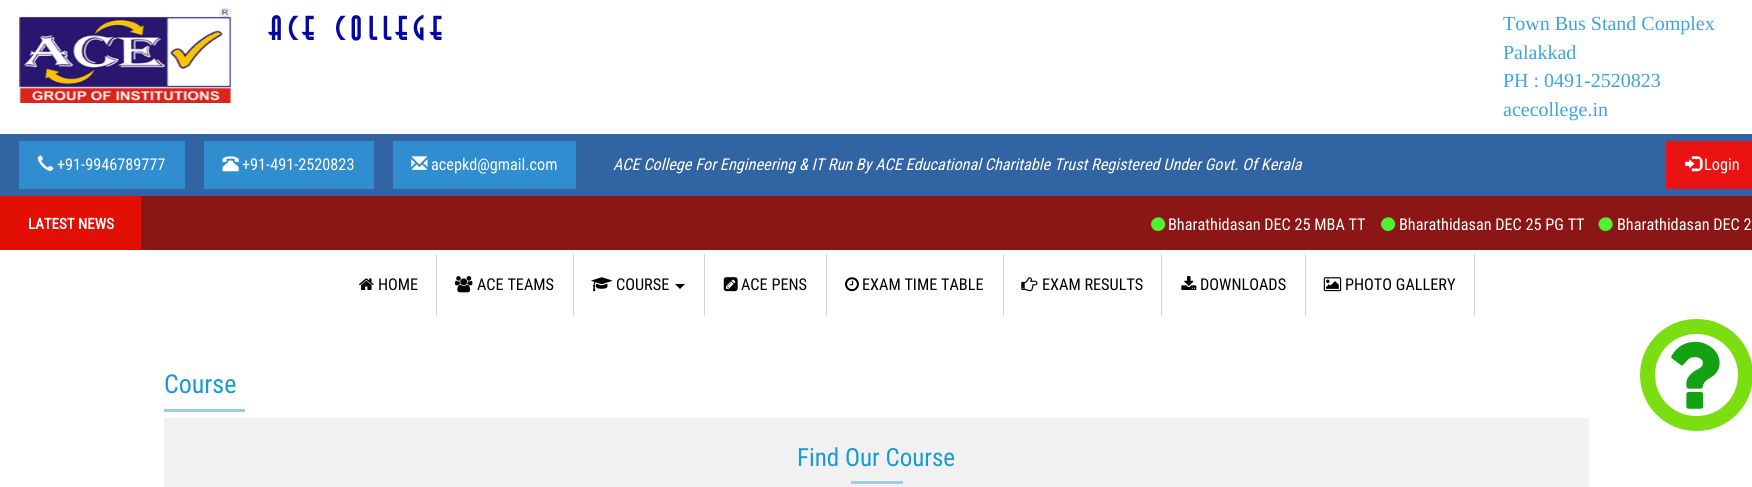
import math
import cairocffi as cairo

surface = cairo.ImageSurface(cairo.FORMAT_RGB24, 1752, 487)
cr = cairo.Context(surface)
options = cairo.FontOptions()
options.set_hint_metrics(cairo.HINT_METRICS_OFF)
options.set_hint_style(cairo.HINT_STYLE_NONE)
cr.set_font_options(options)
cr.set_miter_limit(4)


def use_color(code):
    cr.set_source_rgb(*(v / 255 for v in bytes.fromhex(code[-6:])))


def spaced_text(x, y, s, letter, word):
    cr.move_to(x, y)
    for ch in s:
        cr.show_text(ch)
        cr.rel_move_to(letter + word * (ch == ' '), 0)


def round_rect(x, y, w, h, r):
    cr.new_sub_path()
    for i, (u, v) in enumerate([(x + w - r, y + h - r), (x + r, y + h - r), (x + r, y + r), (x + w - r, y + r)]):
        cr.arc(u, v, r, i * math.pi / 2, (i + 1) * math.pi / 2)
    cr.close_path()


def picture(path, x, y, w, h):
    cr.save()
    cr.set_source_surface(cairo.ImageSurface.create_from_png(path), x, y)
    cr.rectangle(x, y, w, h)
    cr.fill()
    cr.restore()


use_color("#ffffff")
cr.paint()
picture("img1.png", 19, 8, 213, 95)
cr.select_font_face("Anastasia", cairo.FONT_SLANT_NORMAL, cairo.FONT_WEIGHT_BOLD)
cr.set_font_size(31.25)
use_color("#0606a0")
spaced_text(269, 40, "ACE COLLEGE", 6.25, 0)
cr.select_font_face("Liberation Serif")
cr.set_font_size(20)
use_color("#3fa4de")
cr.move_to(1503, 30)
cr.show_text("Town Bus Stand Complex")
cr.move_to(1503, 59)
cr.show_text("Palakkad")
cr.move_to(1503, 87)
cr.show_text("PH : 0491-2520823")
cr.move_to(1503, 116)
cr.show_text("acecollege.in")
use_color("#3164a2")
cr.rectangle(0, 134, 1752, 62)
cr.fill()
use_color("#2f8dd0")
cr.rectangle(19, 141, 166, 48)
cr.fill()
picture("img2.png", 37, 155, 17, 16)
cr.select_font_face("Roboto Condensed")
cr.set_font_size(16.25)
use_color("#ffffff")
cr.move_to(57, 170)
cr.show_text("+91-9946789777")
use_color("#2f8dd0")
cr.rectangle(204, 141, 170, 48)
cr.fill()
picture("img3.png", 222, 156, 17, 16)
use_color("#ffffff")
cr.move_to(242, 170)
cr.show_text("+91-491-2520823")
use_color("#2f8dd0")
cr.rectangle(393, 141, 183, 48)
cr.fill()
picture("img4.png", 411, 156, 17, 14)
use_color("#ffffff")
cr.move_to(431, 170)
cr.show_text("acepkd@gmail.com")
cr.select_font_face("Roboto Condensed", cairo.FONT_SLANT_ITALIC)
cr.move_to(613, 170)
cr.show_text("ACE College For Engineering & IT Run By ACE Educational Charitable Trust Registered Under Govt. Of Kerala")
use_color("#ea1212")
cr.rectangle(1666, 141, 86, 48)
cr.fill()
picture("img5.png", 1685, 156, 18, 16)
cr.select_font_face("Roboto Condensed")
use_color("#ffffff")
cr.move_to(1704, 170)
cr.show_text("Login")
use_color("#8c1616")
cr.rectangle(141, 196, 1611, 54)
cr.fill()
use_color("#e20f05")
cr.rectangle(0, 196, 141, 54)
cr.fill()
cr.select_font_face("Roboto Condensed", cairo.FONT_SLANT_NORMAL, cairo.FONT_WEIGHT_BOLD)
cr.set_font_size(15)
use_color("#ffffff")
cr.move_to(28, 229)
cr.show_text("LATEST NEWS")
use_color("#4ef42f")
cr.new_path()
cr.move_to(1164, 220.5)
cr.curve_to(1169, 228.5, 1157, 235.5, 1152, 227.5)
cr.curve_to(1147.5, 220, 1159.5, 213, 1164, 220.5)
cr.close_path()
cr.fill()
cr.select_font_face("Roboto Condensed")
cr.set_font_size(16.25)
use_color("#ffffff")
cr.move_to(1168, 230)
cr.show_text("Bharathidasan DEC 25 MBA TT")
use_color("#4ef42f")
cr.new_path()
cr.move_to(1394, 220.5)
cr.curve_to(1399, 228.5, 1387, 235.5, 1382, 227.5)
cr.curve_to(1377.5, 220, 1389.5, 213, 1394, 220.5)
cr.close_path()
cr.fill()
use_color("#ffffff")
cr.move_to(1399, 230)
cr.show_text("Bharathidasan DEC 25 PG TT")
use_color("#4ef42f")
cr.new_path()
cr.move_to(1611.5, 220.5)
cr.curve_to(1616.5, 228.5, 1604.5, 235.5, 1599.5, 227.5)
cr.curve_to(1595, 220, 1607, 213, 1611.5, 220.5)
cr.close_path()
cr.fill()
use_color("#ffffff")
cr.move_to(1617, 230)
cr.show_text("Bharathidasan DEC 2")
use_color("#d2d2d2")
cr.rectangle(436, 254, 1, 62)
cr.fill()
picture("img6.png", 359, 278, 15, 12)
use_color("#000000")
cr.move_to(378, 290)
cr.show_text("HOME")
use_color("#d2d2d2")
cr.rectangle(573, 254, 1, 62)
cr.fill()
picture("img7.png", 455, 276, 18, 17)
use_color("#000000")
cr.move_to(477, 290)
cr.show_text("ACE TEAMS")
use_color("#d2d2d2")
cr.rectangle(704, 254, 1, 62)
cr.fill()
picture("img8.png", 591, 277, 22, 15)
use_color("#000000")
cr.move_to(616, 290)
cr.show_text("COURSE")
cr.new_path()
cr.move_to(675, 284)
cr.line_to(685, 284)
cr.line_to(680, 289)
cr.close_path()
cr.fill()
use_color("#d2d2d2")
cr.rectangle(826, 254, 1, 62)
cr.fill()
picture("img9.png", 723, 277, 15, 15)
use_color("#000000")
cr.move_to(741, 290)
cr.show_text("ACE PENS")
use_color("#d2d2d2")
cr.rectangle(1003, 254, 1, 62)
cr.fill()
picture("img10.png", 845, 277, 14, 15)
use_color("#000000")
cr.move_to(862, 290)
cr.show_text("EXAM TIME TABLE")
use_color("#d2d2d2")
cr.rectangle(1161, 254, 1, 62)
cr.fill()
picture("img11.png", 1021, 277, 17, 15)
use_color("#000000")
cr.move_to(1042, 290)
cr.show_text("EXAM RESULTS")
use_color("#d2d2d2")
cr.rectangle(1305, 254, 1, 62)
cr.fill()
picture("img12.png", 1181, 276, 16, 14)
use_color("#000000")
cr.move_to(1200, 290)
cr.show_text("DOWNLOADS")
use_color("#d2d2d2")
cr.rectangle(1474, 254, 1, 62)
cr.fill()
picture("img13.png", 1323, 277, 19, 15)
use_color("#000000")
cr.move_to(1345, 290)
cr.show_text("PHOTO GALLERY")
cr.set_font_size(26)
use_color("#189bce")
cr.move_to(164, 393)
cr.show_text("Course")
use_color("#9dcde0")
cr.rectangle(164, 409, 81, 3)
cr.fill()
use_color("#f1f1f1")
cr.rectangle(164, 418, 1425, 69)
cr.fill()
cr.set_font_size(25)
use_color("#189bce")
cr.move_to(797, 466)
cr.show_text("Find Our Course")
use_color("#9dcde0")
cr.rectangle(851, 481, 52, 3)
cr.fill()
round_rect(1647.5, 326.5, 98, 97, 48.5)
use_color("#7bde11")
cr.set_line_width(15)
cr.stroke()
picture("img14.png", 1671, 341, 49, 68)
surface.write_to_png("result.png")
